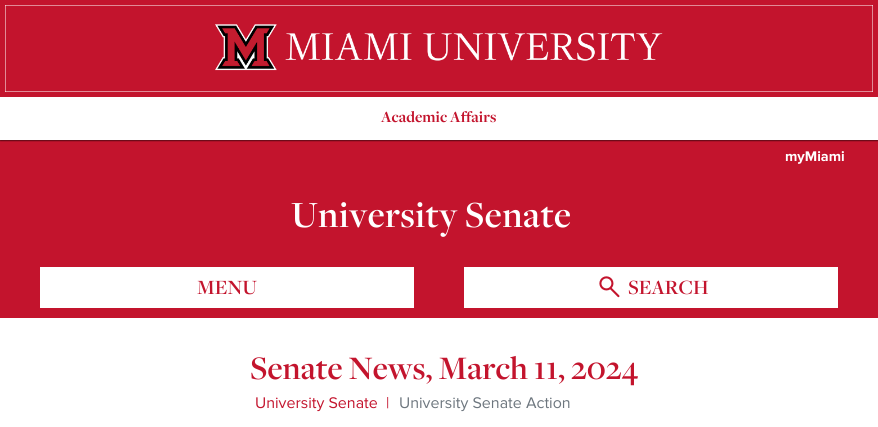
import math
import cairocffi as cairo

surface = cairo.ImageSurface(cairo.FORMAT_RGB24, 878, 427)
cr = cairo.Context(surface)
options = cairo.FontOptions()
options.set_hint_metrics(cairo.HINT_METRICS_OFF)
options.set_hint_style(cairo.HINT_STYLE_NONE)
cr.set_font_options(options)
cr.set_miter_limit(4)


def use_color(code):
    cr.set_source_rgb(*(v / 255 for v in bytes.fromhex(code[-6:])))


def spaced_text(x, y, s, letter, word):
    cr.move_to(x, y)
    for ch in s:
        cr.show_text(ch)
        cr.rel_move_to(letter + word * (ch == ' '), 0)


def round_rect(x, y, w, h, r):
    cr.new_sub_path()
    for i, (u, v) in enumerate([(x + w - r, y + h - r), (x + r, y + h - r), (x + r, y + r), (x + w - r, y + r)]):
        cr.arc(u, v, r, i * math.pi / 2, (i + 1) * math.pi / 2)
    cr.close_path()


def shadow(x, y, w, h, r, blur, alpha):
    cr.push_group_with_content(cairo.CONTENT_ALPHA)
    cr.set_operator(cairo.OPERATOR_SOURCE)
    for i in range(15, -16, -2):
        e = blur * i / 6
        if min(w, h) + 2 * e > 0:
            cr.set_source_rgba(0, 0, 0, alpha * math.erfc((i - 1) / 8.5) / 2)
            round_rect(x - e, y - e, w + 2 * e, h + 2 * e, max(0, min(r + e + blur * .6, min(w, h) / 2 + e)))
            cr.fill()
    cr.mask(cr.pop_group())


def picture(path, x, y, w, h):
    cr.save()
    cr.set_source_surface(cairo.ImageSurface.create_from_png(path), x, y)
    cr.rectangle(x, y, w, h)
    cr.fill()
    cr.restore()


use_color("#ffffff")
cr.paint()
use_color("#c3142d")
cr.rectangle(0, 0, 878, 318)
cr.fill()
cr.save()
cr.rectangle(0, 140, 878, 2)
cr.clip()
use_color("#000000")
shadow(0, 1, 878, 140, 0, 0.5, 0.5)
cr.restore()
use_color("#ffffff")
cr.rectangle(0, 97, 878, 43)
cr.fill()
picture("img1.png", 215, 24, 448, 47)
cr.new_path()
cr.move_to(5.5, 5.5)
cr.line_to(872.5, 5.5)
cr.line_to(872.5, 91.5)
cr.line_to(5.5, 91.5)
cr.close_path()
cr.set_line_width(1)
cr.set_dash([1, 1])
cr.stroke()
cr.select_font_face("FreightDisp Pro", cairo.FONT_SLANT_NORMAL, cairo.FONT_WEIGHT_BOLD)
cr.set_font_size(16.25)
use_color("#c3142d")
cr.move_to(381, 122)
cr.show_text("Academic Affairs")
cr.select_font_face("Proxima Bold", cairo.FONT_SLANT_NORMAL, cairo.FONT_WEIGHT_BOLD)
cr.set_font_size(14.5)
use_color("#ffffff")
cr.move_to(785, 161)
cr.show_text("myMiami")
cr.select_font_face("FreightDisp Pro SemiBold")
cr.set_font_size(38.25)
spaced_text(291, 227, "University Senate", 0.4, 0)
cr.rectangle(40, 267, 374, 41)
cr.fill()
cr.set_font_size(21)
use_color("#c3142d")
cr.move_to(197, 294)
cr.show_text("MENU")
use_color("#ffffff")
cr.rectangle(464, 267, 374, 41)
cr.fill()
picture("img2.png", 599, 276, 21, 22)
use_color("#c3142d")
cr.move_to(628, 294)
cr.show_text("SEARCH")
cr.set_font_size(34)
cr.move_to(250, 379)
cr.show_text("Senate News, March 11, 2024")
cr.select_font_face("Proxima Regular")
cr.set_font_size(16)
cr.move_to(255, 408)
cr.show_text("University Senate")
cr.move_to(386, 408)
cr.show_text("|")
use_color("#6d767e")
cr.move_to(399, 408)
cr.show_text("University Senate Action")
surface.write_to_png("result.png")
